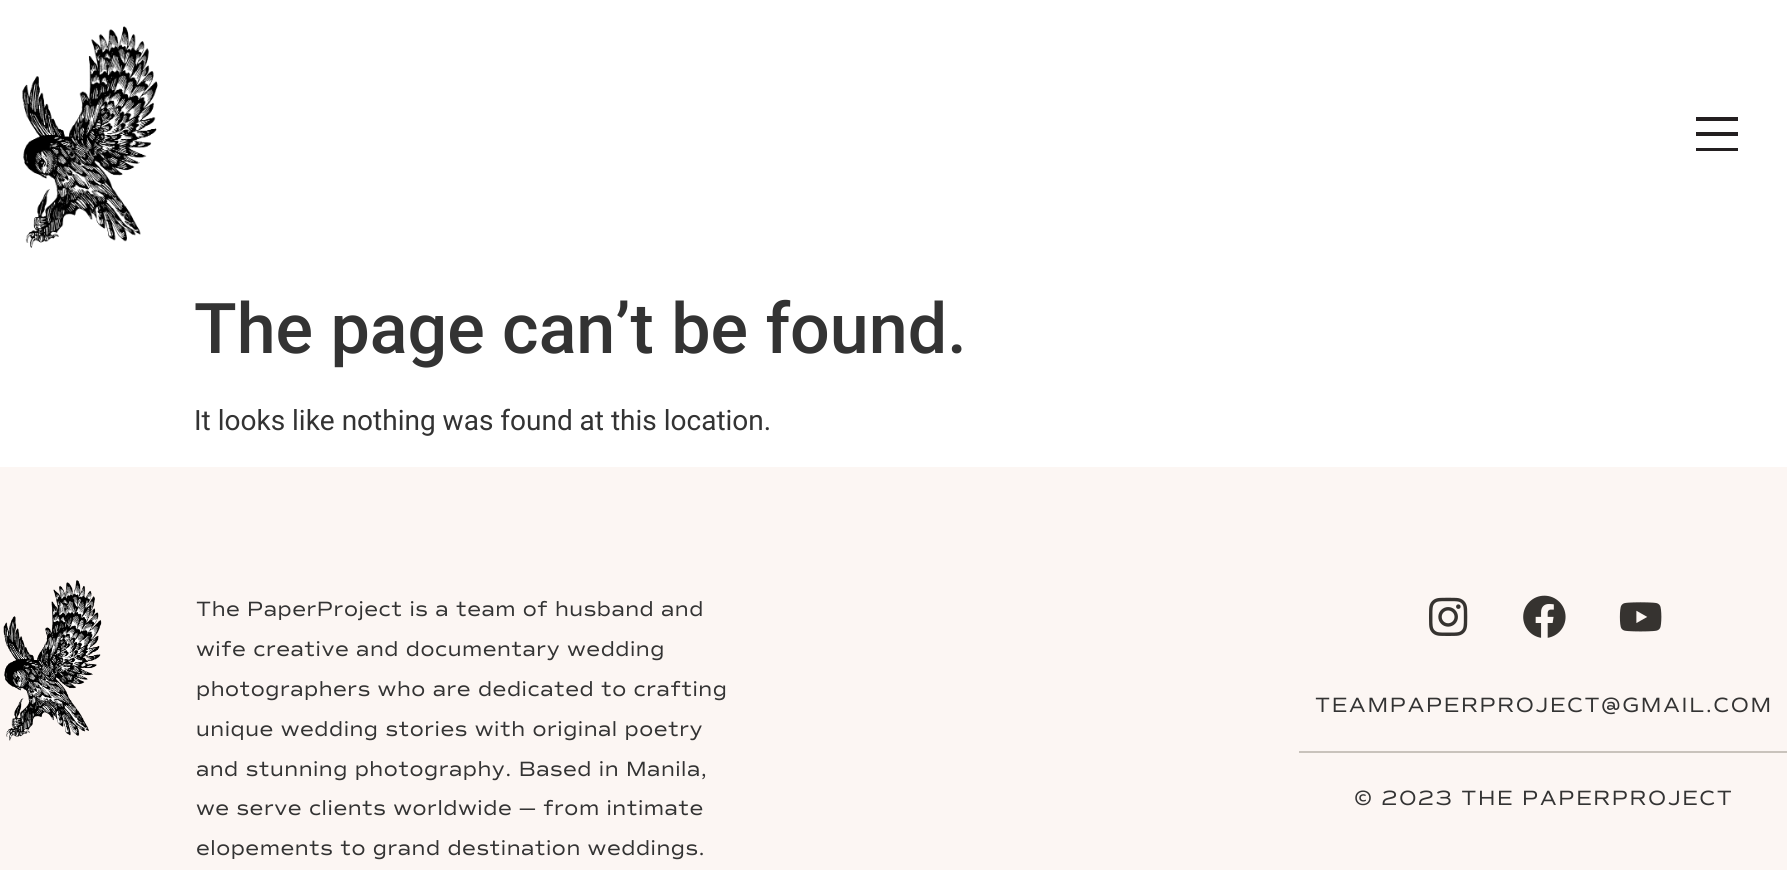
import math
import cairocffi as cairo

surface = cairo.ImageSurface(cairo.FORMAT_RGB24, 1787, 870)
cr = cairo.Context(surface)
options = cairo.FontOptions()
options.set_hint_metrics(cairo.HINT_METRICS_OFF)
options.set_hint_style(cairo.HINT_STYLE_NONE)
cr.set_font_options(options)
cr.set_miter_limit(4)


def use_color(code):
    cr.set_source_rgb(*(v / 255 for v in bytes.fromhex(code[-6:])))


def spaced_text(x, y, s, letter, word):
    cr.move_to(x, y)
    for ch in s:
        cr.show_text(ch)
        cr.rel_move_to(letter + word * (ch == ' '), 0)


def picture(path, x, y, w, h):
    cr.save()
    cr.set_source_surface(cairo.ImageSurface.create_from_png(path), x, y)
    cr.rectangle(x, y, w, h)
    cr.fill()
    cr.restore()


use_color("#ffffff")
cr.paint()
picture("img1.png", 22, 26, 136, 222)
use_color("#231f20")
cr.new_path()
cr.move_to(1738, 117)
cr.line_to(1738, 121)
cr.line_to(1696, 121)
cr.line_to(1696, 117)
cr.close_path()
cr.move_to(1696, 136)
cr.line_to(1738, 136)
cr.line_to(1738, 132)
cr.line_to(1696, 132)
cr.close_path()
cr.move_to(1696, 151)
cr.line_to(1738, 151)
cr.line_to(1738, 148)
cr.line_to(1696, 148)
cr.close_path()
cr.fill()
cr.select_font_face("Roboto Medium")
cr.set_font_size(70)
use_color("#333333")
cr.move_to(194, 353)
cr.show_text("The page can’t be found.")
cr.select_font_face("Roboto")
cr.set_font_size(28)
cr.move_to(194, 430)
cr.show_text("It looks like nothing was found at this location.")
use_color("#fcf6f3")
cr.rectangle(0, 467, 1787, 403)
cr.fill()
picture("img2.png", 3, 580, 99, 161)
cr.select_font_face("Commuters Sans")
cr.set_font_size(21)
use_color("#333333")
spaced_text(196, 616, "The PaperProject is a team of husband and", 0.55, 0)
spaced_text(196, 656, "wife creative and documentary wedding", 0.55, 0)
spaced_text(196, 696, "photographers who are dedicated to crafting", 0.55, 0)
spaced_text(196, 736, "unique wedding stories with original poetry", 0.55, 0)
spaced_text(196, 776, "and stunning photography. Based in Manila,", 0.55, 0)
spaced_text(196, 815, "we serve clients worldwide — from intimate", 0.55, 0)
spaced_text(196, 855, "elopements to grand destination weddings.", 0.55, 0)
picture("img3.png", 1429, 597, 39, 39)
picture("img4.png", 1523, 595, 43, 43)
picture("img5.png", 1619, 602, 43, 30)
use_color("#c9c3bc")
cr.rectangle(1299, 751, 488, 2)
cr.fill()
use_color("#333333")
spaced_text(1315, 712, "TEAMPAPERPROJECT@GMAIL.COM", 1.6, 0)
spaced_text(1354, 805, "© 2023 THE PAPERPROJECT", 1.6, 0)
surface.write_to_png("result.png")
